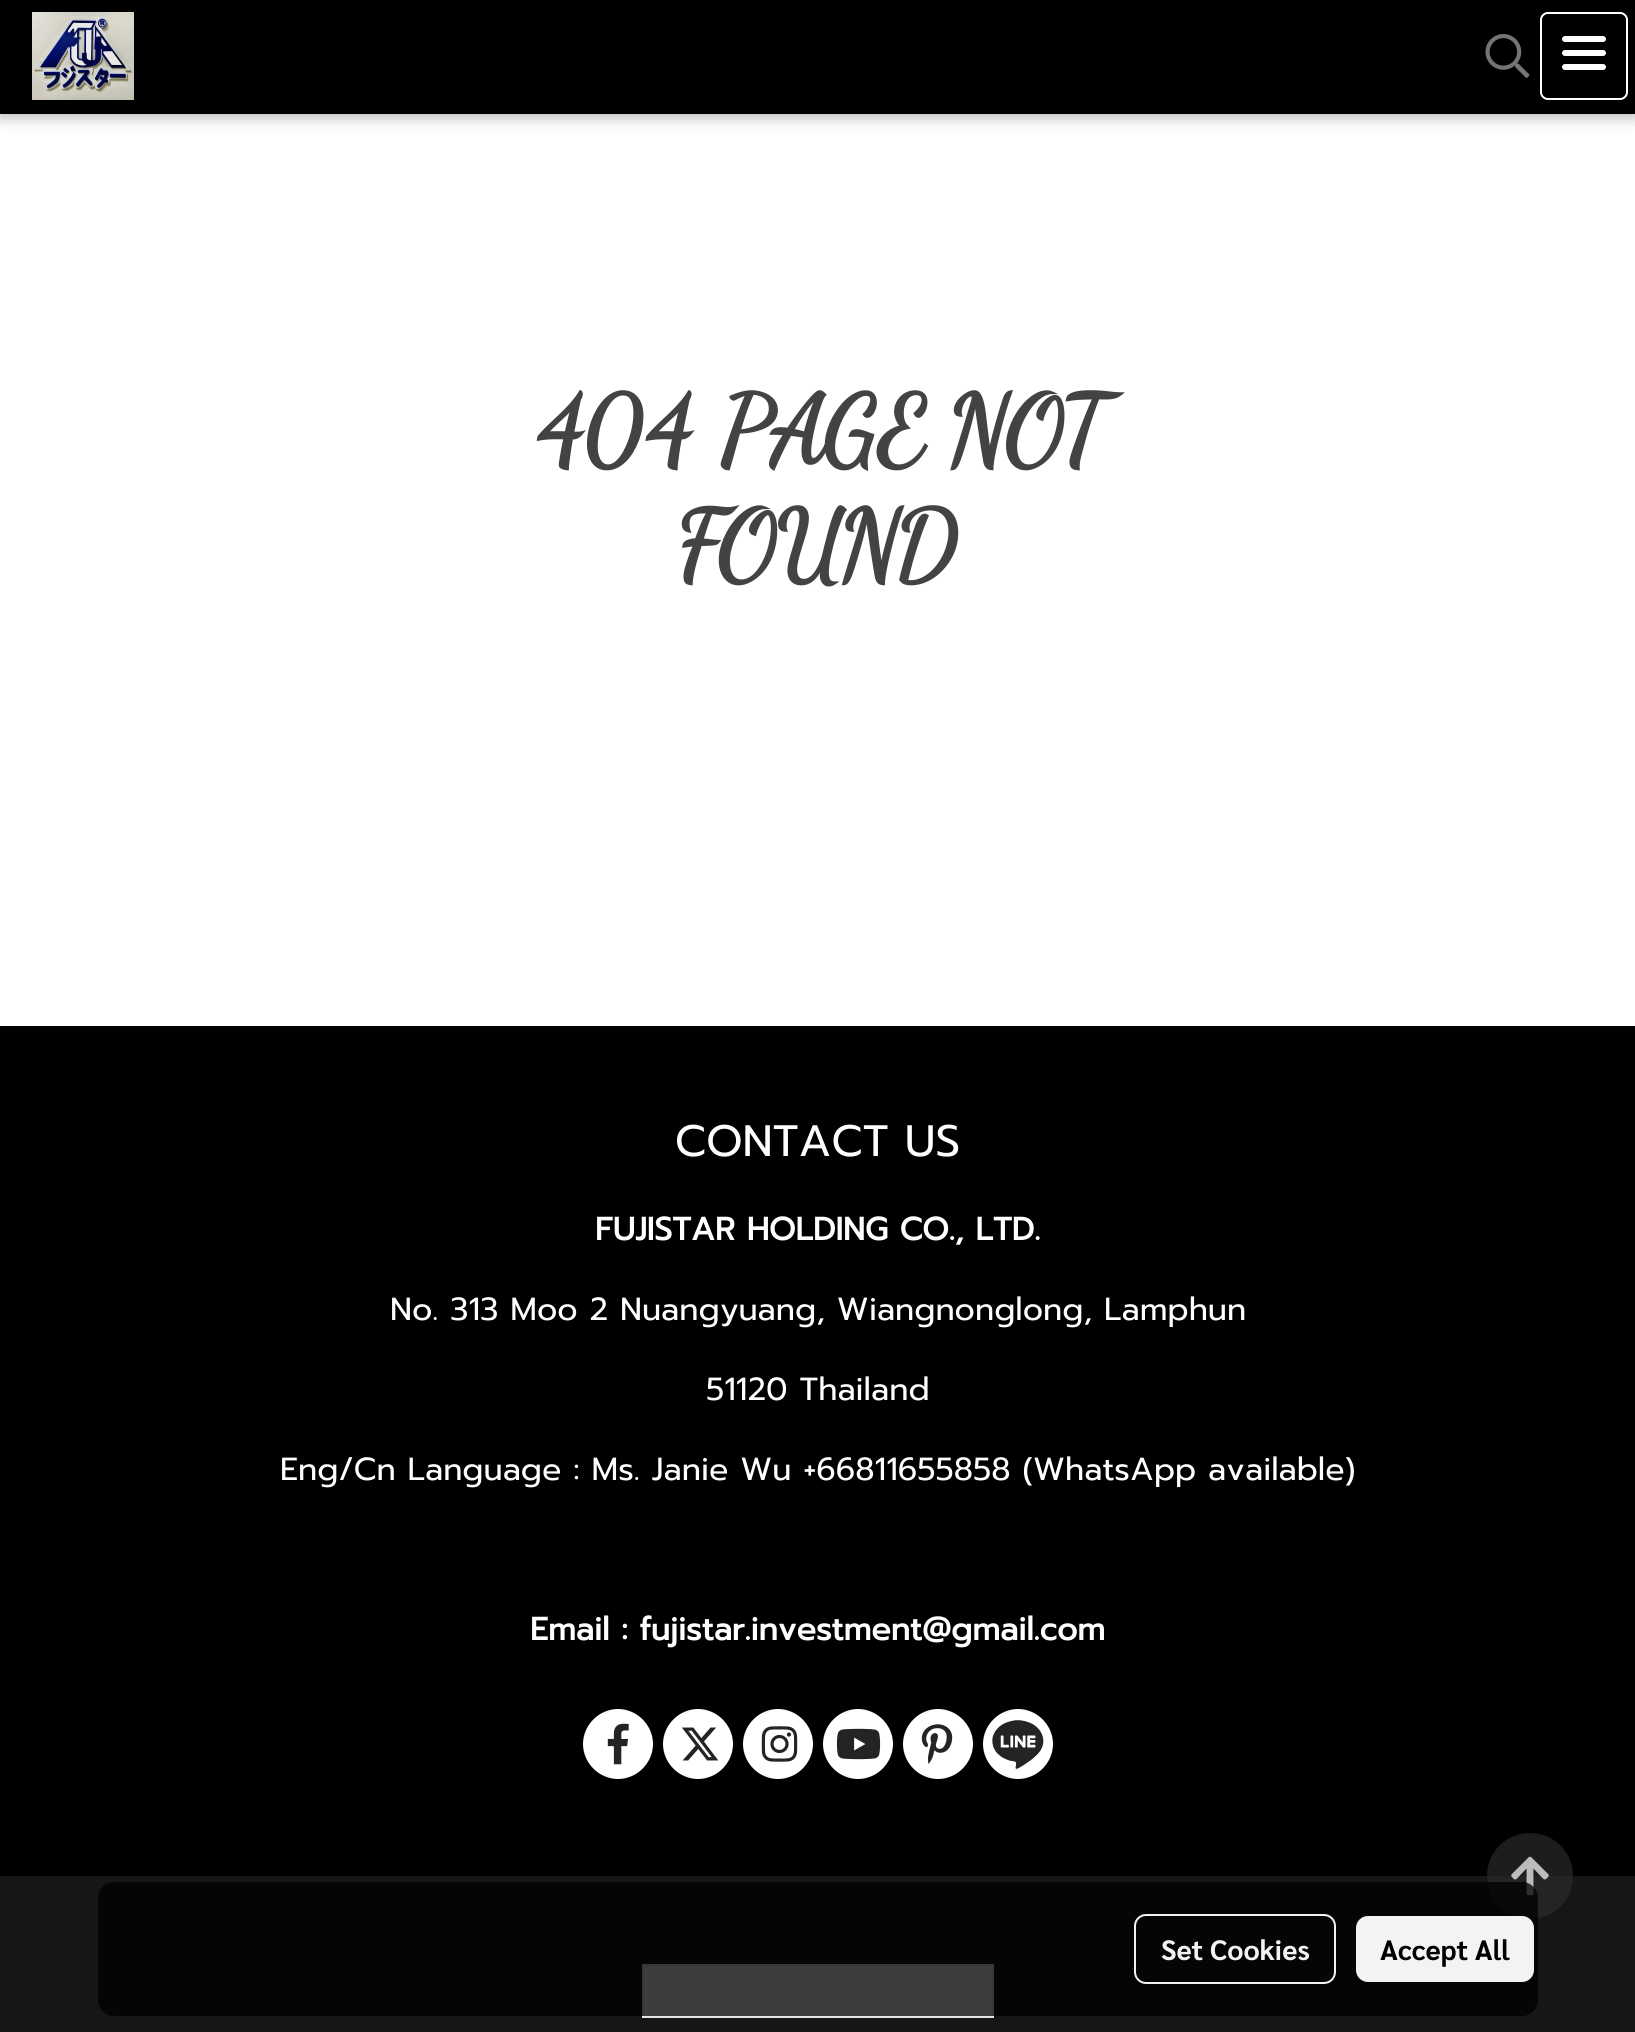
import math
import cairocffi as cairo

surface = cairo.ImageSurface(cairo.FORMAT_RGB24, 1635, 2032)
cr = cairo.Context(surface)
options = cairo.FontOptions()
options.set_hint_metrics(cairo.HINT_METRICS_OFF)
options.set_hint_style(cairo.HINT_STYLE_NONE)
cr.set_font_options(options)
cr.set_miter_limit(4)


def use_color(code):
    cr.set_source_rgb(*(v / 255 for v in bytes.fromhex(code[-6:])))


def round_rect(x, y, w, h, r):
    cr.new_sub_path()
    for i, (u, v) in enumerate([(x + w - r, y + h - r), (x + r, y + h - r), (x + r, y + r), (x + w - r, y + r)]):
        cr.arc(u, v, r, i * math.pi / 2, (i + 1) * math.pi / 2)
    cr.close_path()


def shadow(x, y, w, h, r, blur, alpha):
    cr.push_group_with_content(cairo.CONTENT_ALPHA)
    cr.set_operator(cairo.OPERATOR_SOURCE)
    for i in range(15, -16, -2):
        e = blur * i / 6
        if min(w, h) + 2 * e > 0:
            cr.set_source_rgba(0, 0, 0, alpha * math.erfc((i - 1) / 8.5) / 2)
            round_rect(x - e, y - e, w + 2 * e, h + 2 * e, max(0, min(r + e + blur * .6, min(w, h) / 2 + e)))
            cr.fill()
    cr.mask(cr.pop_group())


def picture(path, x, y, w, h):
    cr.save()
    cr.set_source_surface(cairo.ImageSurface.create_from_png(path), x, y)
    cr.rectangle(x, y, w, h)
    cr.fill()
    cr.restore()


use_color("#ffffff")
cr.paint()
use_color("#000000")
shadow(0, 4, 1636, 114, 0, 10, 0.12)
shadow(0, 4, 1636, 114, 0, 5, 0.16)
use_color("#000000")
cr.rectangle(0, 0, 1635, 114)
cr.fill()
picture("img1.png", 32, 12, 102, 88)
picture("img2.png", 1485, 34, 45, 44)
round_rect(1541, 13, 86, 86, 7)
use_color("#ffffff")
cr.stroke()
use_color("#feffff")
round_rect(1562, 50, 44, 6, 3)
cr.fill()
round_rect(1562, 36, 44, 6, 3)
cr.fill()
round_rect(1562, 64, 44, 6, 3)
cr.fill()
cr.select_font_face("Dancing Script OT", cairo.FONT_SLANT_NORMAL, cairo.FONT_WEIGHT_BOLD)
cr.set_font_size(96)
use_color("#434343")
cr.move_to(535, 462)
cr.show_text("404 PAGE NOT")
cr.move_to(678, 577)
cr.show_text("FOUND")
use_color("#000000")
cr.rectangle(0, 1026, 1635, 850)
cr.fill()
cr.select_font_face("Prompt")
cr.set_font_size(44)
use_color("#ffffff")
cr.move_to(675, 1156)
cr.show_text("CONTACT US")
cr.select_font_face("Prompt", cairo.FONT_SLANT_NORMAL, cairo.FONT_WEIGHT_BOLD)
cr.set_font_size(32)
cr.move_to(595, 1240)
cr.show_text("FUJISTAR HOLDING CO., LTD.")
cr.select_font_face("Prompt")
cr.move_to(390, 1320)
cr.show_text("No. 313 Moo 2 Nuangyuang, Wiangnonglong, Lamphun")
cr.move_to(706, 1400)
cr.show_text("51120 Thailand")
cr.move_to(280, 1480)
cr.show_text("Eng/Cn Language : Ms. Janie Wu +66811655858 (WhatsApp available)")
cr.select_font_face("Prompt", cairo.FONT_SLANT_NORMAL, cairo.FONT_WEIGHT_BOLD)
cr.move_to(530, 1640)
cr.show_text("Email : fujistar.investment@gmail.com")
cr.new_path()
cr.move_to(618, 1709)
cr.curve_to(599, 1709, 583, 1725, 583, 1744)
cr.curve_to(583, 1763, 599, 1779, 618, 1779)
cr.curve_to(637, 1779, 653, 1763, 653, 1744)
cr.curve_to(653, 1725, 637, 1709, 618, 1709)
cr.close_path()
cr.fill()
picture("img3.png", 607, 1723, 22, 42)
cr.new_path()
cr.move_to(698, 1709)
cr.curve_to(679, 1709, 663, 1725, 663, 1744)
cr.curve_to(663, 1763, 679, 1779, 698, 1779)
cr.curve_to(717, 1779, 733, 1763, 733, 1744)
cr.curve_to(733, 1725, 717, 1709, 698, 1709)
cr.close_path()
cr.fill()
picture("img4.png", 682, 1727, 37, 34)
cr.new_path()
cr.move_to(778, 1709)
cr.curve_to(759, 1709, 743, 1725, 743, 1744)
cr.curve_to(743, 1763, 759, 1779, 778, 1779)
cr.curve_to(797, 1779, 813, 1763, 813, 1744)
cr.curve_to(813, 1725, 797, 1709, 778, 1709)
cr.close_path()
cr.fill()
picture("img5.png", 761, 1726, 37, 36)
cr.new_path()
cr.move_to(858, 1709)
cr.curve_to(839, 1709, 823, 1725, 823, 1744)
cr.curve_to(823, 1763, 839, 1779, 858, 1779)
cr.curve_to(877, 1779, 893, 1763, 893, 1744)
cr.curve_to(893, 1725, 877, 1709, 858, 1709)
cr.close_path()
cr.fill()
picture("img6.png", 836, 1728, 45, 32)
cr.new_path()
cr.move_to(938, 1709)
cr.curve_to(919, 1709, 903, 1725, 903, 1744)
cr.curve_to(903, 1763, 919, 1779, 938, 1779)
cr.curve_to(957, 1779, 973, 1763, 973, 1744)
cr.curve_to(973, 1725, 957, 1709, 938, 1709)
cr.close_path()
cr.fill()
picture("img7.png", 921, 1724, 32, 40)
cr.new_path()
cr.move_to(1018, 1709)
cr.curve_to(999, 1709, 983, 1725, 983, 1744)
cr.curve_to(983, 1763, 999, 1779, 1018, 1779)
cr.curve_to(1037, 1779, 1053, 1763, 1053, 1744)
cr.curve_to(1053, 1725, 1037, 1709, 1018, 1709)
cr.close_path()
cr.fill()
picture("img8.png", 992, 1720, 52, 49)
use_color("#161616")
cr.rectangle(0, 1876, 1635, 156)
cr.fill()
use_color("#ffffff")
cr.rectangle(643, 1965, 350, 52)
cr.fill_preserve()
use_color("#e5e5e5")
cr.stroke()
cr.set_source_rgba(0.169, 0.165, 0.165, 0.7)
cr.new_path()
cr.move_to(1530, 1833)
cr.curve_to(1506, 1833, 1487, 1852, 1487, 1876)
cr.curve_to(1487, 1900, 1506, 1919, 1530, 1919)
cr.curve_to(1554, 1919, 1573, 1900, 1573, 1876)
cr.curve_to(1573, 1852, 1554, 1833, 1530, 1833)
cr.close_path()
cr.fill()
picture("img9.png", 1511, 1856, 38, 40)
cr.set_source_rgba(0, 0, 0, 0.76)
round_rect(98, 1882, 1440, 134, 16)
cr.fill()
round_rect(1135, 1915, 200, 68, 11)
use_color("#f3f3f3")
cr.stroke()
cr.select_font_face("Sarabun", cairo.FONT_SLANT_NORMAL, cairo.FONT_WEIGHT_BOLD)
cr.set_font_size(28)
cr.move_to(1161, 1960)
cr.show_text("Set Cookies")
cr.set_source_rgba(1, 1, 1, 0.95)
round_rect(1356, 1916, 178, 66, 12)
cr.fill()
use_color("#010101")
cr.move_to(1380, 1960)
cr.show_text("Accept All")
surface.write_to_png("result.png")
